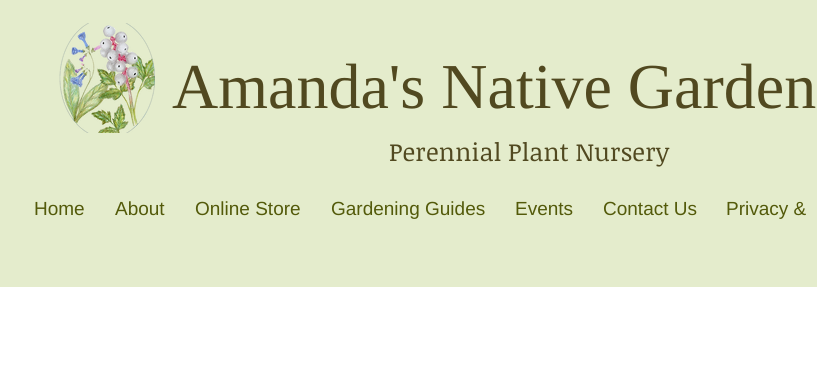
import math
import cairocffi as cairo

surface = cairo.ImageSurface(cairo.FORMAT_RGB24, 817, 387)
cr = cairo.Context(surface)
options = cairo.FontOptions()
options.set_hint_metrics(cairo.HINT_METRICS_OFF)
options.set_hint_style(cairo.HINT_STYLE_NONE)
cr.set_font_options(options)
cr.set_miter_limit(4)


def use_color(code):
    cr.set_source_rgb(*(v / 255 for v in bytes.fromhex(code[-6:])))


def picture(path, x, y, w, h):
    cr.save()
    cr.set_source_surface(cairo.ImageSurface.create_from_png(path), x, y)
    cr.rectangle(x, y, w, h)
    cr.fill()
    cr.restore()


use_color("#ffffff")
cr.paint()
use_color("#e4eccc")
cr.rectangle(0, 0, 817, 287)
cr.fill()
picture("img1.png", 59, 23, 96, 110)
cr.select_font_face("Liberation Serif")
cr.set_font_size(64)
use_color("#514920")
cr.move_to(172, 108)
cr.show_text("Amanda's Native Garden")
cr.select_font_face("Noticia Text")
cr.set_font_size(25)
cr.move_to(389, 161)
cr.show_text("Perennial Plant Nursery")
cr.select_font_face("Liberation Sans")
cr.set_font_size(19)
use_color("#535a0a")
cr.move_to(34, 215)
cr.show_text("Home")
cr.move_to(115, 215)
cr.show_text("About")
cr.move_to(195, 215)
cr.show_text("Online Store")
cr.move_to(331, 215)
cr.show_text("Gardening Guides")
cr.move_to(515, 215)
cr.show_text("Events")
cr.move_to(603, 215)
cr.show_text("Contact Us")
cr.move_to(726, 215)
cr.show_text("Privacy &")
surface.write_to_png("result.png")
